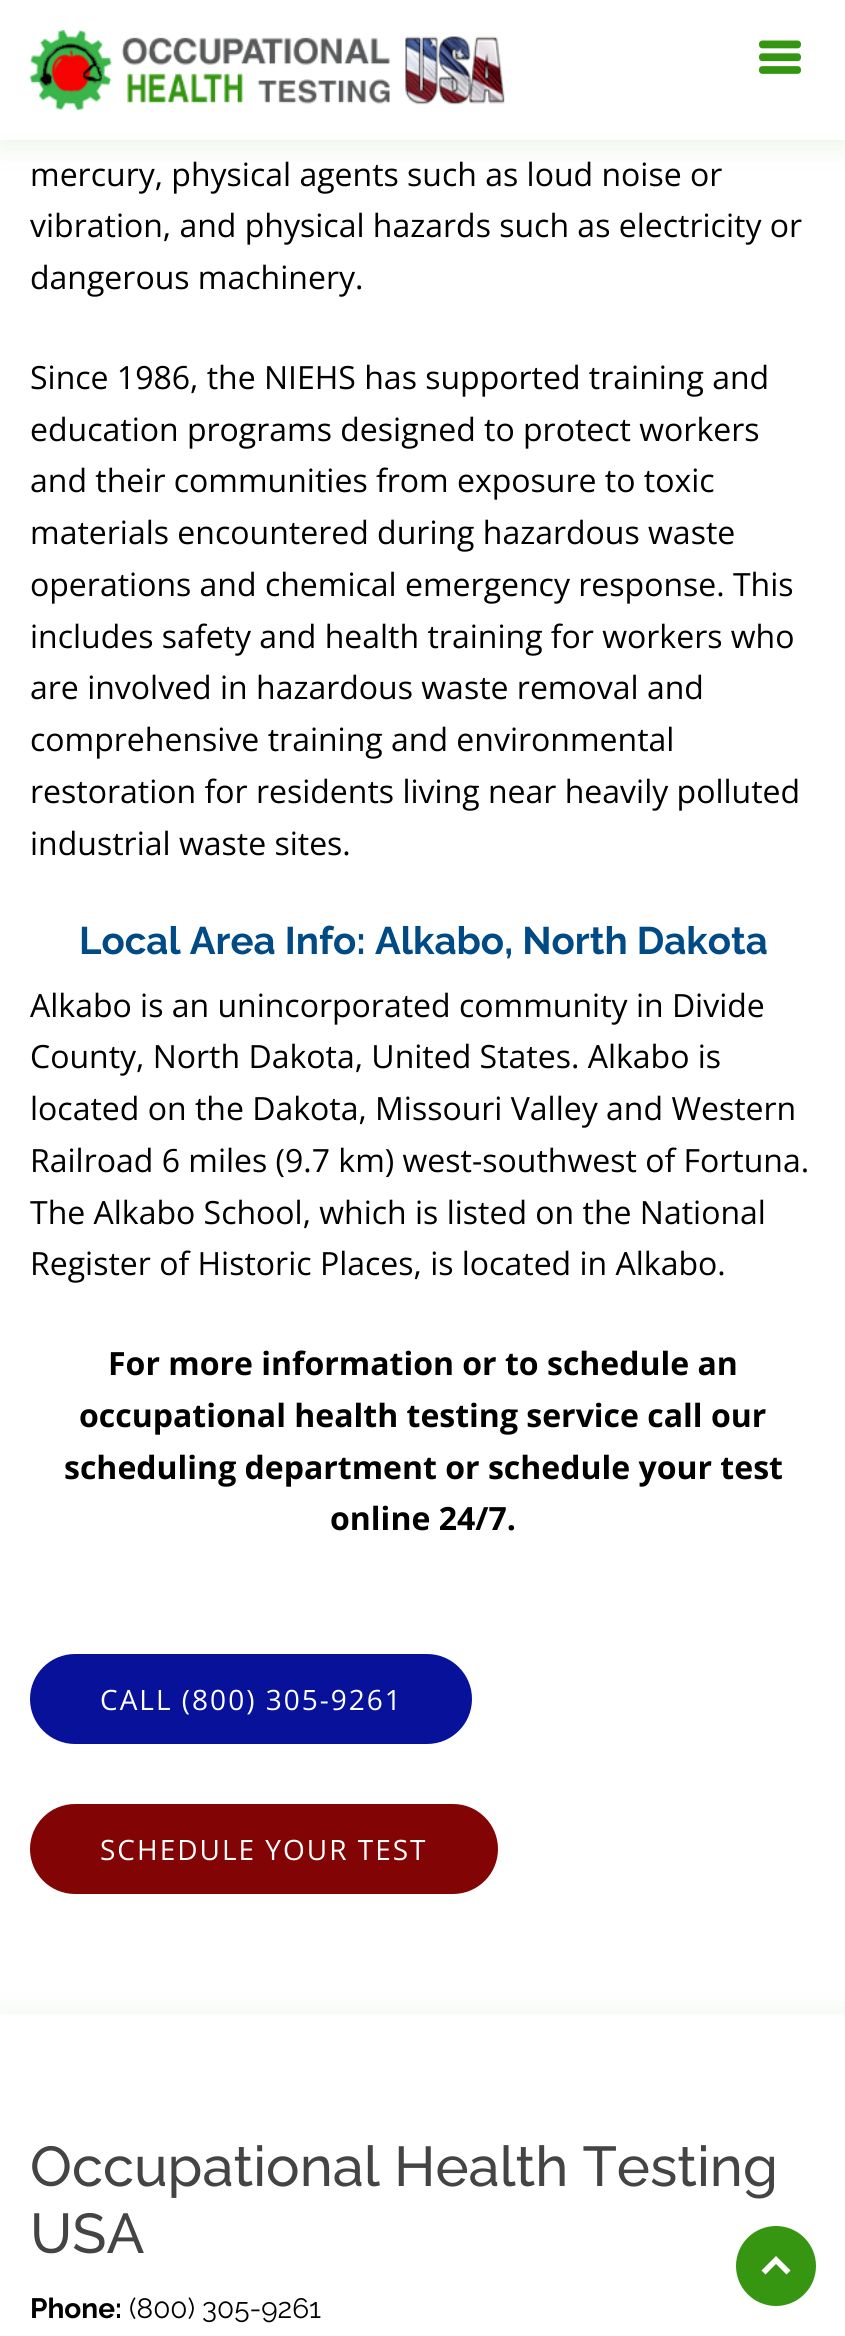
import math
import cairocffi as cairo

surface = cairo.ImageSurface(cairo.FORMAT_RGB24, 845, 2336)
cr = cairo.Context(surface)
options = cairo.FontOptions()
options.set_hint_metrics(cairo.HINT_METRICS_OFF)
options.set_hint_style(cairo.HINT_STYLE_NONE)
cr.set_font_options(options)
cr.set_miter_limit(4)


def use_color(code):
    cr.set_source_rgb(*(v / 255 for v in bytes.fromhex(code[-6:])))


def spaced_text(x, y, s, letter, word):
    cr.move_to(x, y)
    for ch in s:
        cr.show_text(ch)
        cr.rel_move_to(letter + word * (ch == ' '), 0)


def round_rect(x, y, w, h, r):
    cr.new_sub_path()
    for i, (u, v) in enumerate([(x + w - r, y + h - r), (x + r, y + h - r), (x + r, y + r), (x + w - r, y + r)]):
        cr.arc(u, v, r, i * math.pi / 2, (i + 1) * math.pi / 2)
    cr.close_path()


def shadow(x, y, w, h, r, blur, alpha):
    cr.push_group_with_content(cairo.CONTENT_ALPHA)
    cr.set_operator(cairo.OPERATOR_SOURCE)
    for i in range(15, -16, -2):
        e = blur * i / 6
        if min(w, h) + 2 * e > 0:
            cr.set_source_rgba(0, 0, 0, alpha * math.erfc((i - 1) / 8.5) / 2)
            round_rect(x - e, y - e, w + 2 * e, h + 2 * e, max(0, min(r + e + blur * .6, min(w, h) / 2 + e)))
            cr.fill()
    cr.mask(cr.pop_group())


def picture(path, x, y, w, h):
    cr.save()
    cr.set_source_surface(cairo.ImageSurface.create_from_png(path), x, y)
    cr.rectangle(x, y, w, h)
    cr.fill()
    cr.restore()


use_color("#ffffff")
cr.paint()
use_color("#347508")
shadow(0, 4, 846, 140, 0, 15, 0.1)
use_color("#ffffff")
cr.rectangle(0, 0, 845, 140)
cr.fill()
picture("img1.png", 30, 30, 475, 80)
picture("img2.png", 759, 40, 42, 34)
cr.select_font_face("Open Sans")
cr.set_font_size(32)
use_color("#000000")
cr.move_to(30, 186)
cr.show_text("mercury, physical agents such as loud noise or")
cr.move_to(30, 237)
cr.show_text("vibration, and physical hazards such as electricity or")
cr.move_to(30, 289)
cr.show_text("dangerous machinery.")
cr.move_to(30, 389)
cr.show_text("Since 1986, the NIEHS has supported training and")
cr.move_to(30, 441)
cr.show_text("education programs designed to protect workers")
cr.move_to(30, 492)
cr.show_text("and their communities from exposure to toxic")
cr.move_to(30, 544)
cr.show_text("materials encountered during hazardous waste")
cr.move_to(30, 596)
cr.show_text("operations and chemical emergency response. This")
cr.move_to(30, 648)
cr.show_text("includes safety and health training for workers who")
cr.move_to(30, 699)
cr.show_text("are involved in hazardous waste removal and")
cr.move_to(30, 751)
cr.show_text("comprehensive training and environmental")
cr.move_to(30, 803)
cr.show_text("restoration for residents living near heavily polluted")
cr.move_to(30, 855)
cr.show_text("industrial waste sites.")
cr.select_font_face("Raleway", cairo.FONT_SLANT_NORMAL, cairo.FONT_WEIGHT_BOLD)
cr.set_font_size(38.4)
use_color("#004a85")
cr.move_to(79, 954)
cr.show_text("Local Area Info: Alkabo, North Dakota")
cr.select_font_face("Open Sans")
cr.set_font_size(32)
use_color("#000000")
cr.move_to(30, 1017)
cr.show_text("Alkabo is an unincorporated community in Divide")
cr.move_to(30, 1068)
cr.show_text("County, North Dakota, United States. Alkabo is")
cr.move_to(30, 1120)
cr.show_text("located on the Dakota, Missouri Valley and Western")
cr.move_to(30, 1172)
cr.show_text("Railroad 6 miles (9.7 km) west-southwest of Fortuna.")
cr.move_to(30, 1224)
cr.show_text("The Alkabo School, which is listed on the National")
cr.move_to(30, 1275)
cr.show_text("Register of Historic Places, is located in Alkabo.")
cr.select_font_face("Open Sans", cairo.FONT_SLANT_NORMAL, cairo.FONT_WEIGHT_BOLD)
cr.move_to(108, 1375)
cr.show_text("For more information or to schedule an")
cr.move_to(79, 1427)
cr.show_text("occupational health testing service call our")
cr.move_to(64, 1479)
cr.show_text("scheduling department or schedule your test")
cr.move_to(330, 1530)
cr.show_text("online 24/7.")
use_color("#08119a")
round_rect(30, 1654, 442, 90, 45)
cr.fill()
cr.select_font_face("Open Sans")
cr.set_font_size(28)
use_color("#ffffff")
spaced_text(100, 1710, "CALL (800) 305-9261", 2, 0)
use_color("#820404")
round_rect(30, 1804, 468, 90, 45)
cr.fill()
use_color("#ffffff")
spaced_text(100, 1860, "SCHEDULE YOUR TEST", 2, 0)
use_color("#347002")
shadow(0, 2018, 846, 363, 0, 15, 0.1)
use_color("#ffffff")
cr.rectangle(0, 2014, 845, 322)
cr.fill()
cr.select_font_face("Raleway Medium")
cr.set_font_size(56)
use_color("#444444")
cr.move_to(30, 2186)
cr.show_text("Occupational Health Testing")
cr.move_to(30, 2253)
cr.show_text("USA")
cr.select_font_face("Raleway", cairo.FONT_SLANT_NORMAL, cairo.FONT_WEIGHT_BOLD)
cr.set_font_size(28)
use_color("#000000")
cr.move_to(30, 2318)
cr.show_text("Phone:")
cr.select_font_face("Raleway")
cr.move_to(129, 2318)
cr.show_text("(800) 305-9261")
use_color("#369612")
cr.new_path()
cr.arc(776, 2266, 40, 0, 2 * math.pi)
cr.fill()
use_color("#ffffff")
cr.new_path()
cr.move_to(765.5, 2274.5)
cr.line_to(776, 2264)
cr.line_to(786.5, 2274.5)
cr.line_to(790.5, 2270.5)
cr.line_to(776, 2256)
cr.line_to(761.5, 2270.5)
cr.close_path()
cr.fill()
surface.write_to_png("result.png")
